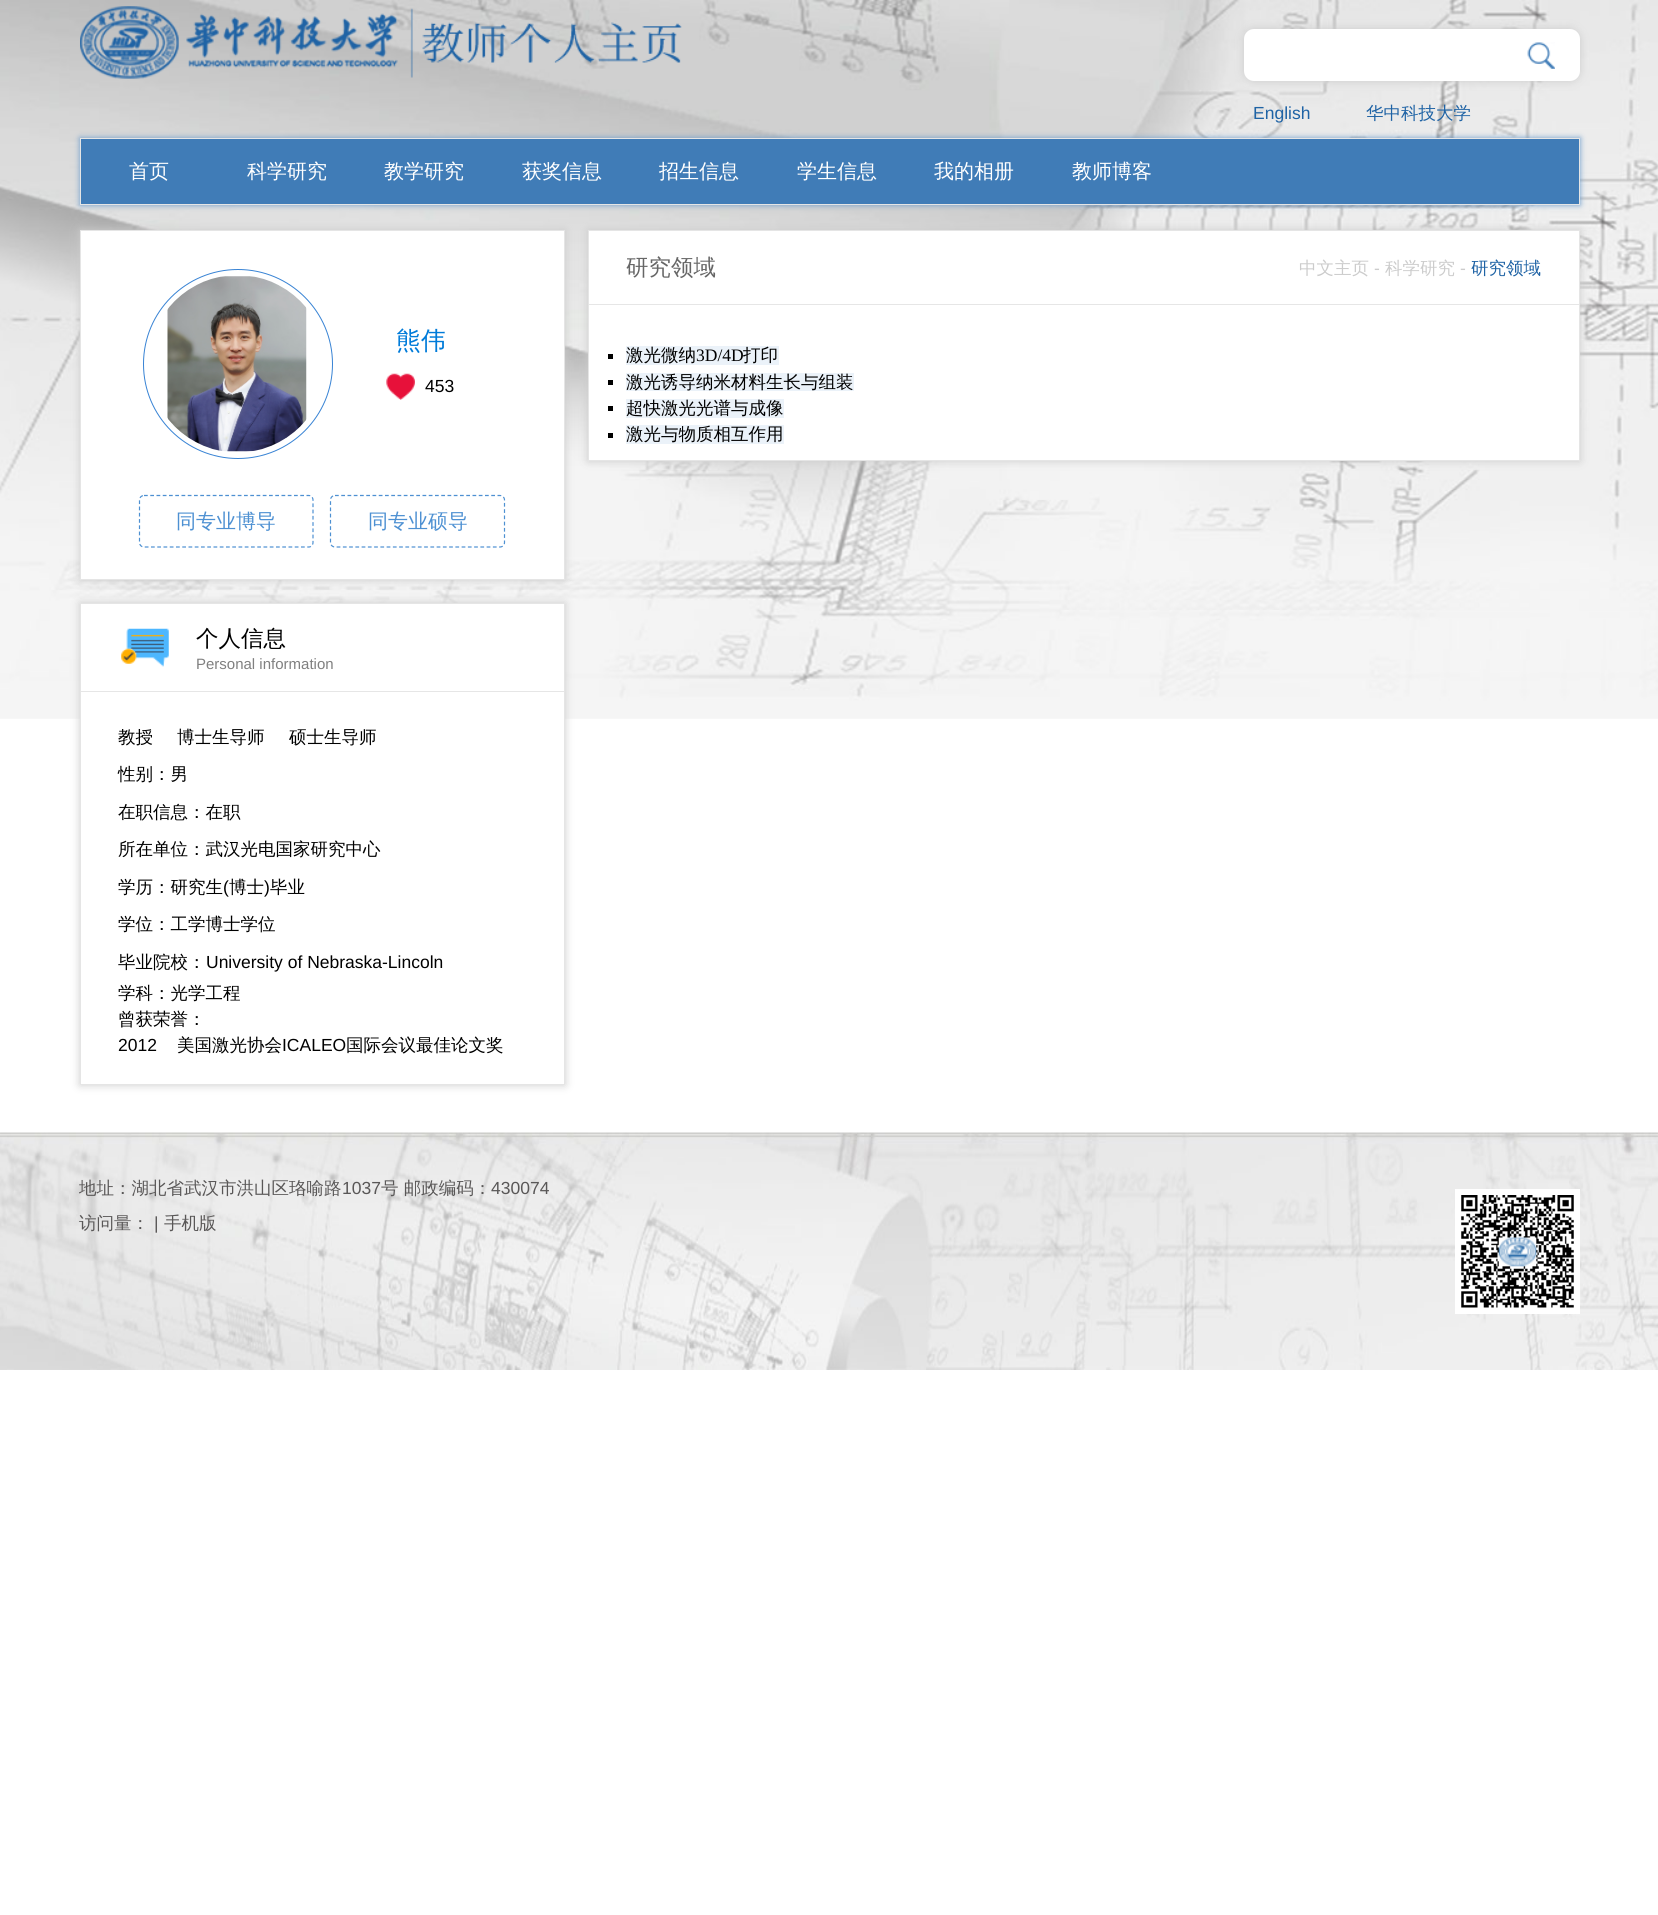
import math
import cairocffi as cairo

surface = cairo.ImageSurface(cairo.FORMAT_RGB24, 1658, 1915)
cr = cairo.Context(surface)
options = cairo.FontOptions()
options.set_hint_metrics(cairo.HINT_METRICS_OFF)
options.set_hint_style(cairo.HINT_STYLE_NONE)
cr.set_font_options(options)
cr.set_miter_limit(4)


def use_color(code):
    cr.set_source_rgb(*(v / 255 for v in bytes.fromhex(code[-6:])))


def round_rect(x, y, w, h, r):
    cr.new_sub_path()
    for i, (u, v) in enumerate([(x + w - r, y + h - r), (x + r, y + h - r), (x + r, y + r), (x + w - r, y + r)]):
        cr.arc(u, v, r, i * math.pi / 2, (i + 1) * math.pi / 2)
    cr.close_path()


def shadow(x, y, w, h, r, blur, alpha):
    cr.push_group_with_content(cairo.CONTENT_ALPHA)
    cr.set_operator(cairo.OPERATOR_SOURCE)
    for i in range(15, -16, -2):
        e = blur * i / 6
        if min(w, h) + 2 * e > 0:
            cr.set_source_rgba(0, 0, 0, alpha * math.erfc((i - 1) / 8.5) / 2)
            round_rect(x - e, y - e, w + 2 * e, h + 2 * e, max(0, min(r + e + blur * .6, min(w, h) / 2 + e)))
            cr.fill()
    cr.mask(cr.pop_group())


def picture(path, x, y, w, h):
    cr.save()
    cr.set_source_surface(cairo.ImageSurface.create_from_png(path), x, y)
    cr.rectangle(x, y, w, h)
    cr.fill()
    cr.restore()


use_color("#ffffff")
cr.paint()
picture("img1.png", 0, 0, 1658, 719)
picture("img2.png", 80, 6, 602, 73)
use_color("#cccccc")
shadow(1244, 29, 336, 52, 10, 4.5, 1)
use_color("#ffffff")
round_rect(1244, 29, 336, 52, 10)
cr.fill()
picture("img3.png", 1527, 42, 28, 27)
cr.select_font_face("Liberation Sans")
cr.set_font_size(17.5)
use_color("#1f63a5")
cr.move_to(1253, 119)
cr.show_text("English")
cr.select_font_face("WenQuanYi Zen Hei Medium")
cr.move_to(1366, 119)
cr.show_text("华中科技大学")
use_color("#6899ca")
shadow(80, 138, 1500, 67, 0, 3, 1)
use_color("#407cb7")
cr.rectangle(80.5, 138.5, 1499, 66)
cr.fill_preserve()
use_color("#e5e5e5")
cr.set_line_width(1)
cr.stroke()
cr.set_font_size(20)
use_color("#ffffff")
cr.move_to(129, 178)
cr.show_text("首页")
cr.move_to(247, 178)
cr.show_text("科学研究")
cr.move_to(384, 178)
cr.show_text("教学研究")
cr.move_to(522, 178)
cr.show_text("获奖信息")
cr.move_to(659, 178)
cr.show_text("招生信息")
cr.move_to(797, 178)
cr.show_text("学生信息")
cr.move_to(934, 178)
cr.show_text("我的相册")
cr.move_to(1072, 178)
cr.show_text("教师博客")
use_color("#cccccc")
shadow(80, 230, 485, 350, 0, 4.5, 1)
use_color("#ffffff")
cr.rectangle(80.5, 230.5, 484, 349)
cr.fill_preserve()
use_color("#e5e5e5")
cr.stroke()
cr.arc(238, 364, 94.5, 0, 2 * math.pi)
use_color("#3883d4")
cr.stroke()
picture("img4.png", 167, 276, 140, 176)
cr.set_font_size(25)
use_color("#007bd9")
cr.move_to(396, 349)
cr.show_text("熊伟")
picture("img5.png", 386, 373, 29, 27)
cr.select_font_face("Liberation Sans")
cr.set_font_size(17.5)
use_color("#000000")
cr.move_to(425, 392)
cr.show_text("453")
cr.new_path()
cr.move_to(144, 495.5)
cr.line_to(309, 495.5)
cr.curve_to(311, 495.5, 313, 497.5, 313, 500)
cr.line_to(313, 542.5)
cr.curve_to(313, 545, 311, 547, 309, 547)
cr.line_to(144, 547)
cr.curve_to(141.5, 547, 139.5, 545, 139.5, 542.5)
cr.line_to(139.5, 500)
cr.curve_to(139.5, 497.5, 141.5, 495.5, 144, 495.5)
cr.close_path()
use_color("#4d90d2")
cr.set_line_width(1.2)
cr.set_dash([3.75, 2.5])
cr.stroke()
cr.select_font_face("WenQuanYi Zen Hei Medium")
cr.set_font_size(20)
cr.move_to(176, 528)
cr.show_text("同专业博导")
cr.new_path()
cr.move_to(335, 495.5)
cr.line_to(500, 495.5)
cr.curve_to(502.5, 495.5, 504.5, 497.5, 504.5, 500)
cr.line_to(504.5, 542.5)
cr.curve_to(504.5, 545, 502.5, 547, 500, 547)
cr.line_to(335, 547)
cr.curve_to(332.5, 547, 330.5, 545, 330.5, 542.5)
cr.line_to(330.5, 500)
cr.curve_to(330.5, 497.5, 332.5, 495.5, 335, 495.5)
cr.close_path()
cr.stroke()
cr.move_to(368, 528)
cr.show_text("同专业硕导")
use_color("#cccccc")
shadow(80, 603, 485, 482, 0, 4.5, 1)
use_color("#ffffff")
cr.rectangle(80.5, 603.5, 484, 481)
cr.fill_preserve()
use_color("#e5e5e5")
cr.set_line_width(1)
cr.set_dash([])
cr.stroke()
use_color("#e6e6e6")
cr.rectangle(81, 691, 483, 1)
cr.fill()
picture("img6.png", 121, 628, 48, 39)
cr.set_font_size(22.5)
use_color("#000000")
cr.move_to(196, 646)
cr.show_text("个人信息")
cr.select_font_face("Liberation Sans")
cr.set_font_size(15)
use_color("#808080")
cr.move_to(196, 669)
cr.show_text("Personal information")
cr.select_font_face("WenQuanYi Zen Hei Medium")
cr.set_font_size(17.5)
use_color("#000000")
cr.move_to(118, 743)
cr.show_text("教授")
cr.move_to(177, 743)
cr.show_text("博士生导师")
cr.move_to(289, 743)
cr.show_text("硕士生导师")
cr.move_to(118, 780)
cr.show_text("性别：男")
cr.move_to(118, 818)
cr.show_text("在职信息：在职")
cr.move_to(118, 855)
cr.show_text("所在单位：武汉光电国家研究中心")
cr.move_to(118, 893)
cr.show_text("学历：研究生")
cr.select_font_face("Liberation Sans")
cr.move_to(223, 893)
cr.show_text("(")
cr.select_font_face("WenQuanYi Zen Hei Medium")
cr.move_to(229, 893)
cr.show_text("博士")
cr.select_font_face("Liberation Sans")
cr.move_to(264, 893)
cr.show_text(")")
cr.select_font_face("WenQuanYi Zen Hei Medium")
cr.move_to(270, 893)
cr.show_text("毕业")
cr.move_to(118, 930)
cr.show_text("学位：工学博士学位")
cr.move_to(118, 968)
cr.show_text("毕业院校：")
cr.select_font_face("Liberation Sans")
cr.move_to(206, 968)
cr.show_text("University of Nebraska-Lincoln")
cr.select_font_face("WenQuanYi Zen Hei Medium")
cr.move_to(118, 999)
cr.show_text("学科：光学工程")
cr.move_to(118, 1025)
cr.show_text("曾获荣誉：")
cr.select_font_face("Liberation Sans")
cr.move_to(118, 1051)
cr.show_text("2012")
cr.select_font_face("WenQuanYi Zen Hei Medium")
cr.move_to(177, 1051)
cr.show_text("美国激光协会")
cr.select_font_face("Liberation Sans")
cr.move_to(282, 1051)
cr.show_text("ICALEO")
cr.select_font_face("WenQuanYi Zen Hei Medium")
cr.move_to(346, 1051)
cr.show_text("国际会议最佳论文奖")
use_color("#cccccc")
shadow(588, 230, 992, 231, 0, 4.5, 1)
use_color("#ffffff")
cr.rectangle(588.5, 230.5, 991, 230)
cr.fill_preserve()
use_color("#e5e5e5")
cr.stroke()
use_color("#e6e6e6")
cr.rectangle(589, 304, 990, 1)
cr.fill()
cr.set_font_size(22.5)
use_color("#666666")
cr.move_to(626, 275)
cr.show_text("研究领域")
cr.set_font_size(17.5)
use_color("#cccccc")
cr.move_to(1299, 274)
cr.show_text("中文主页")
cr.select_font_face("Liberation Sans")
cr.move_to(1374, 274)
cr.show_text("-")
cr.select_font_face("WenQuanYi Zen Hei Medium")
cr.move_to(1385, 274)
cr.show_text("科学研究")
cr.select_font_face("Liberation Sans")
cr.move_to(1460, 274)
cr.show_text("-")
cr.select_font_face("WenQuanYi Zen Hei Medium")
use_color("#1f63a5")
cr.move_to(1471, 274)
cr.show_text("研究领域")
use_color("#000000")
cr.rectangle(608, 354, 5, 5)
cr.fill()
use_color("#ebf2f9")
cr.rectangle(626, 346, 153, 19)
cr.fill()
use_color("#000000")
cr.move_to(626, 361)
cr.show_text("激光微纳")
cr.select_font_face("Liberation Serif")
cr.move_to(696, 361)
cr.show_text("3D/4D")
cr.select_font_face("WenQuanYi Zen Hei Medium")
cr.move_to(743, 361)
cr.show_text("打印")
cr.rectangle(608, 380, 5, 5)
cr.fill()
use_color("#ebf2f9")
cr.rectangle(626, 373, 228, 18)
cr.fill()
use_color("#000000")
cr.move_to(626, 388)
cr.show_text("激光诱导纳米材料生长与组装")
cr.rectangle(608, 406, 5, 5)
cr.fill()
use_color("#ebf2f9")
cr.rectangle(626, 399, 158, 19)
cr.fill()
use_color("#000000")
cr.move_to(626, 414)
cr.show_text("超快激光光谱与成像")
cr.rectangle(608, 433, 5, 5)
cr.fill()
use_color("#ebf2f9")
cr.rectangle(626, 425, 158, 19)
cr.fill()
use_color("#000000")
cr.move_to(626, 440)
cr.show_text("激光与物质相互作用")
picture("img7.png", 0, 1132, 1658, 238)
use_color("#595757")
cr.move_to(79, 1194)
cr.show_text("地址：湖北省武汉市洪山区珞喻路")
cr.select_font_face("Liberation Sans")
cr.move_to(342, 1194)
cr.show_text("1037")
cr.select_font_face("WenQuanYi Zen Hei Medium")
cr.move_to(381, 1194)
cr.show_text("号 邮政编码：")
cr.select_font_face("Liberation Sans")
cr.move_to(491, 1194)
cr.show_text("430074")
cr.select_font_face("WenQuanYi Zen Hei Medium")
cr.move_to(79, 1229)
cr.show_text("访问量：")
cr.select_font_face("Liberation Sans")
cr.move_to(154, 1229)
cr.show_text("|")
cr.select_font_face("WenQuanYi Zen Hei Medium")
cr.move_to(164, 1229)
cr.show_text("手机版")
use_color("#ffffff")
cr.rectangle(1455, 1189, 125, 125)
cr.fill()
picture("img8.png", 1461, 1195, 113, 113)
surface.write_to_png("result.png")
